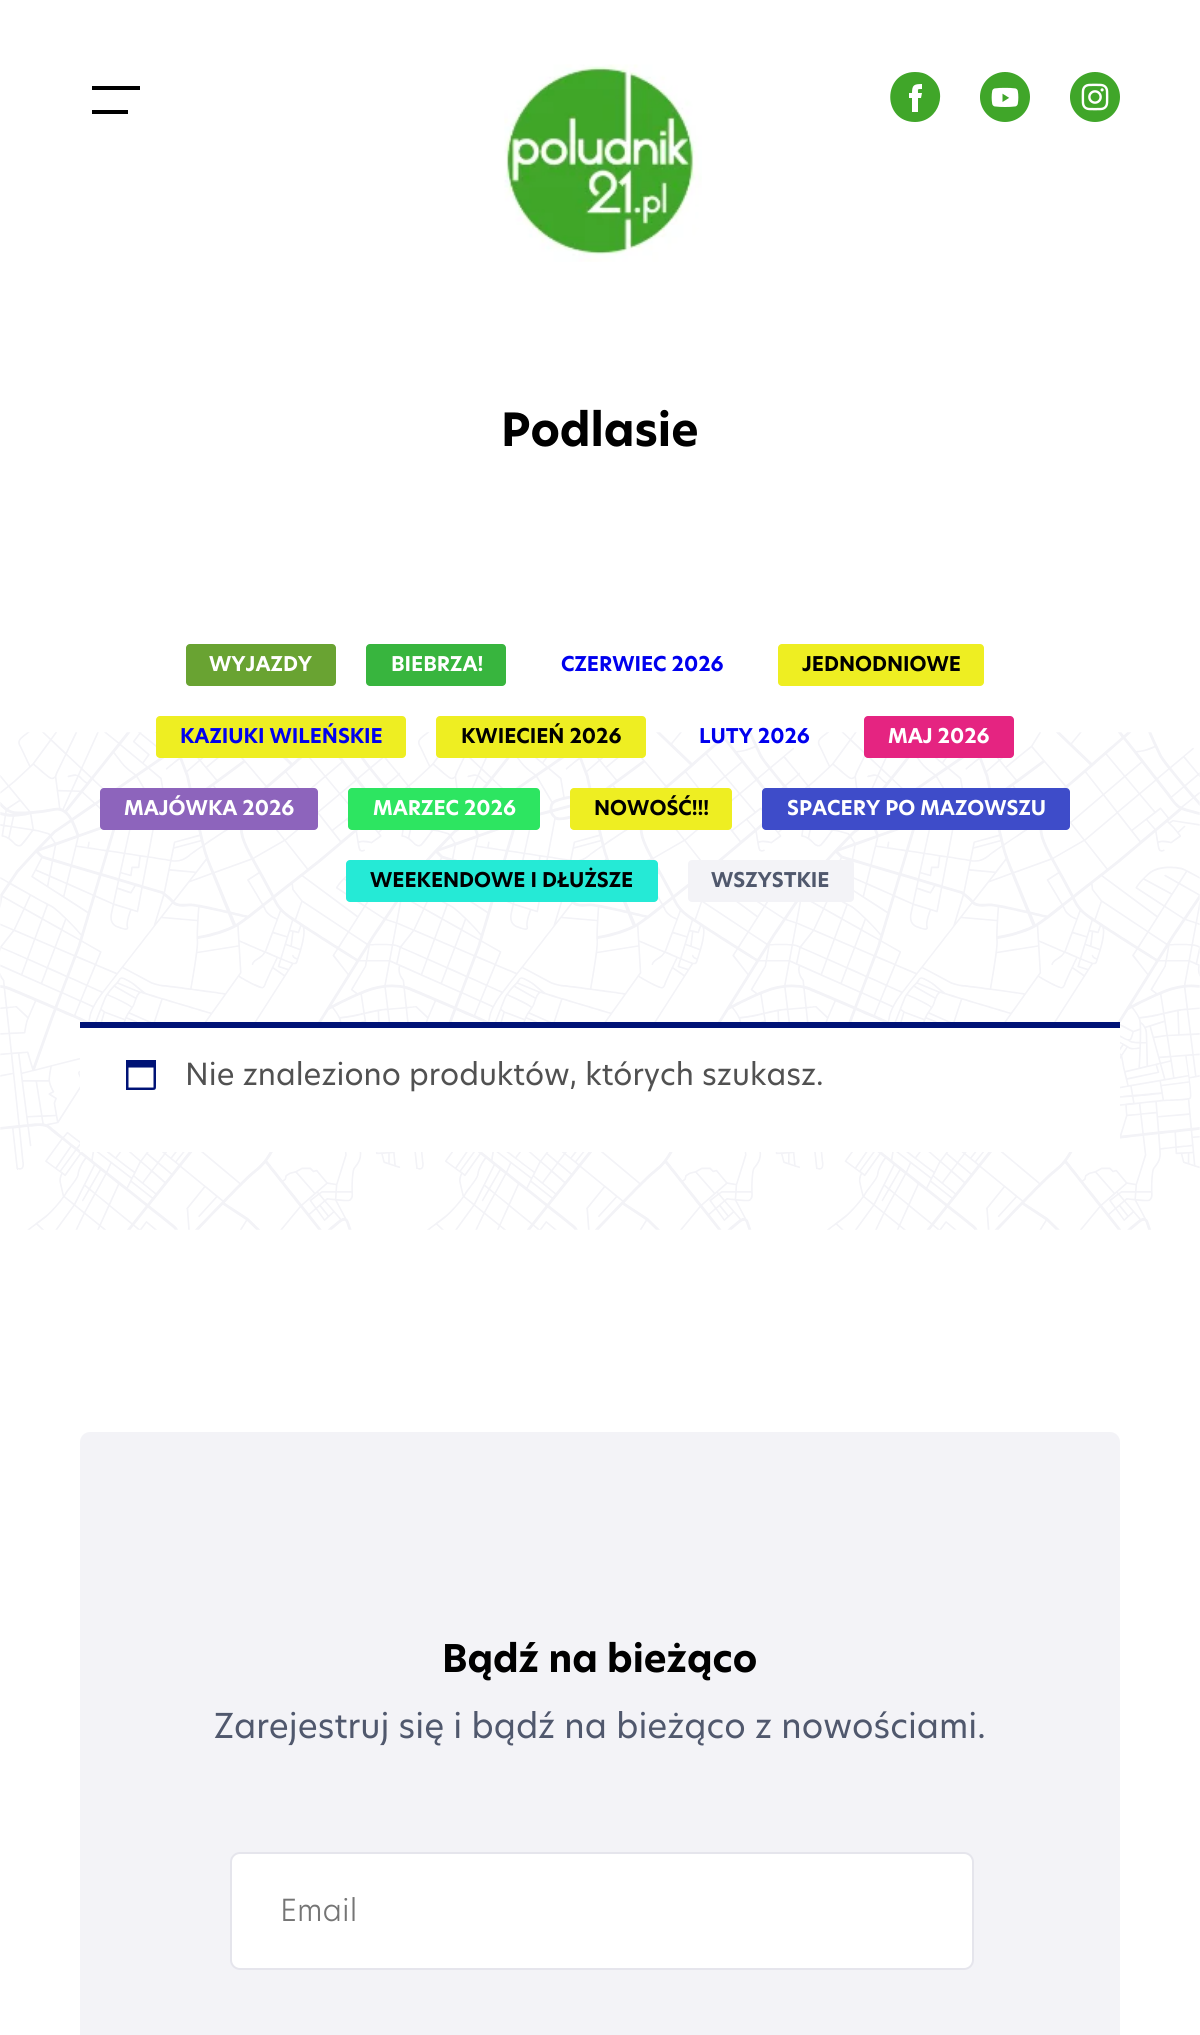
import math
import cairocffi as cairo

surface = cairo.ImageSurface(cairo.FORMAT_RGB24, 1200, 2035)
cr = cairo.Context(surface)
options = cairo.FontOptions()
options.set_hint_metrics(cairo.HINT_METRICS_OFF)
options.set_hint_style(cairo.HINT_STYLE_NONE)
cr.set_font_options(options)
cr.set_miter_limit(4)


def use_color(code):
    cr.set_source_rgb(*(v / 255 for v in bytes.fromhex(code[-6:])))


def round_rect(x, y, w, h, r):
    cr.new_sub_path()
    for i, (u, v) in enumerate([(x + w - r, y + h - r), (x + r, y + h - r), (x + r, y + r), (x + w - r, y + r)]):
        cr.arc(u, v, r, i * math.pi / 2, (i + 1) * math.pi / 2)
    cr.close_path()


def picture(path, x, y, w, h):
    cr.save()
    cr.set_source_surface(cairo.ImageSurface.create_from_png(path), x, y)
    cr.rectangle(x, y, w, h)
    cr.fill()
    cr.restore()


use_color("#ffffff")
cr.paint()
use_color("#000000")
cr.rectangle(92, 86, 48, 4)
cr.fill()
cr.rectangle(92, 110, 36, 4)
cr.fill()
picture("img1.png", 504, 64, 198, 198)
use_color("#40a629")
cr.new_path()
cr.move_to(915, 122)
cr.curve_to(882, 122, 882, 72, 915, 72)
cr.curve_to(920, 72, 925, 73, 929, 76)
cr.curve_to(950, 90, 939, 122, 915, 122)
cr.close_path()
cr.move_to(909, 93)
cr.line_to(909, 98)
cr.line_to(912, 98)
cr.line_to(912, 112)
cr.line_to(918, 112)
cr.line_to(918, 98)
cr.line_to(921, 98)
cr.line_to(922, 93)
cr.line_to(918, 93)
cr.curve_to(918, 89, 917, 89, 922, 89)
cr.line_to(922, 84)
cr.curve_to(914, 84, 912, 85, 912, 93)
cr.close_path()
cr.fill()
picture("img2.png", 980, 72, 50, 50)
picture("img3.png", 1070, 72, 50, 50)
cr.select_font_face("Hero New", cairo.FONT_SLANT_NORMAL, cairo.FONT_WEIGHT_BOLD)
cr.set_font_size(45)
use_color("#000000")
cr.move_to(501, 446)
cr.show_text("Podlasie")
use_color("#69a332")
round_rect(186, 644, 150, 42, 4)
cr.fill()
cr.set_font_size(20)
use_color("#ffffff")
cr.move_to(209, 671)
cr.show_text("WYJAZDY")
use_color("#38b53e")
round_rect(366, 644, 140, 42, 4)
cr.fill()
use_color("#ffffff")
cr.move_to(391, 671)
cr.show_text("BIEBRZA!")
use_color("#0000ee")
cr.move_to(561, 671)
cr.show_text("CZERWIEC 2026")
use_color("#eeee22")
round_rect(778, 644, 206, 42, 4)
cr.fill()
use_color("#000000")
cr.move_to(802, 671)
cr.show_text("JEDNODNIOWE")
picture("img4.png", 0, 732, 1200, 498)
use_color("#eeee22")
round_rect(156, 716, 250, 42, 4)
cr.fill()
use_color("#0000ee")
cr.move_to(180, 743)
cr.show_text("KAZIUKI WILEŃSKIE")
use_color("#eeee22")
round_rect(436, 716, 210, 42, 4)
cr.fill()
use_color("#000000")
cr.move_to(461, 743)
cr.show_text("KWIECIEŃ 2026")
use_color("#0000ee")
cr.move_to(699, 743)
cr.show_text("LUTY 2026")
use_color("#e52481")
round_rect(864, 716, 150, 42, 4)
cr.fill()
use_color("#ffffff")
cr.move_to(888, 743)
cr.show_text("MAJ 2026")
use_color("#8d64bc")
round_rect(100, 788, 218, 42, 4)
cr.fill()
use_color("#ffffff")
cr.move_to(124, 815)
cr.show_text("MAJÓWKA 2026")
use_color("#2de561")
round_rect(348, 788, 192, 42, 4)
cr.fill()
use_color("#ffffff")
cr.move_to(373, 815)
cr.show_text("MARZEC 2026")
use_color("#eeee22")
round_rect(570, 788, 162, 42, 4)
cr.fill()
use_color("#000000")
cr.move_to(594, 815)
cr.show_text("NOWOŚĆ!!!")
use_color("#3e4cc9")
round_rect(762, 788, 308, 42, 4)
cr.fill()
use_color("#ffffff")
cr.move_to(787, 815)
cr.show_text("SPACERY PO MAZOWSZU")
use_color("#25ead6")
round_rect(346, 860, 312, 42, 4)
cr.fill()
use_color("#000000")
cr.move_to(370, 887)
cr.show_text("WEEKENDOWE I DŁUŻSZE")
use_color("#f3f3f7")
round_rect(688, 860, 166, 42, 4)
cr.fill()
use_color("#50586d")
cr.move_to(711, 887)
cr.show_text("WSZYSTKIE")
use_color("#ffffff")
cr.rectangle(80, 1028, 1040, 124)
cr.fill()
use_color("#001376")
cr.rectangle(80, 1022, 1040, 6)
cr.fill()
cr.new_path()
cr.move_to(153.5, 1067.5)
cr.line_to(128.5, 1067.5)
cr.line_to(128.5, 1087.5)
cr.line_to(153.5, 1087.5)
cr.close_path()
cr.move_to(156, 1060)
cr.line_to(156, 1083)
cr.curve_to(156, 1090.5, 156.5, 1090, 149, 1090)
cr.line_to(126, 1090)
cr.line_to(126, 1060)
cr.close_path()
cr.fill()
cr.select_font_face("Hero New")
cr.set_font_size(30)
use_color("#515151")
cr.move_to(185, 1085)
cr.show_text("Nie znaleziono produktów, których szukasz.")
use_color("#f3f3f7")
round_rect(80, 1432, 1040, 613, 10)
cr.fill()
cr.select_font_face("Hero New", cairo.FONT_SLANT_NORMAL, cairo.FONT_WEIGHT_BOLD)
cr.set_font_size(37.5)
use_color("#000000")
cr.move_to(442, 1672)
cr.show_text("Bądź na bieżąco")
cr.select_font_face("Hero New")
cr.set_font_size(33.75)
use_color("#50586d")
cr.move_to(214, 1738)
cr.show_text("Zarejestruj się i bądź na bieżąco z nowościami.")
use_color("#ffffff")
round_rect(231, 1853, 742, 116, 9)
cr.fill_preserve()
use_color("#e5e5ec")
cr.stroke()
cr.select_font_face("Hero New Light")
cr.set_font_size(30)
use_color("#757575")
cr.move_to(280, 1921)
cr.show_text("Email")
surface.write_to_png("result.png")
